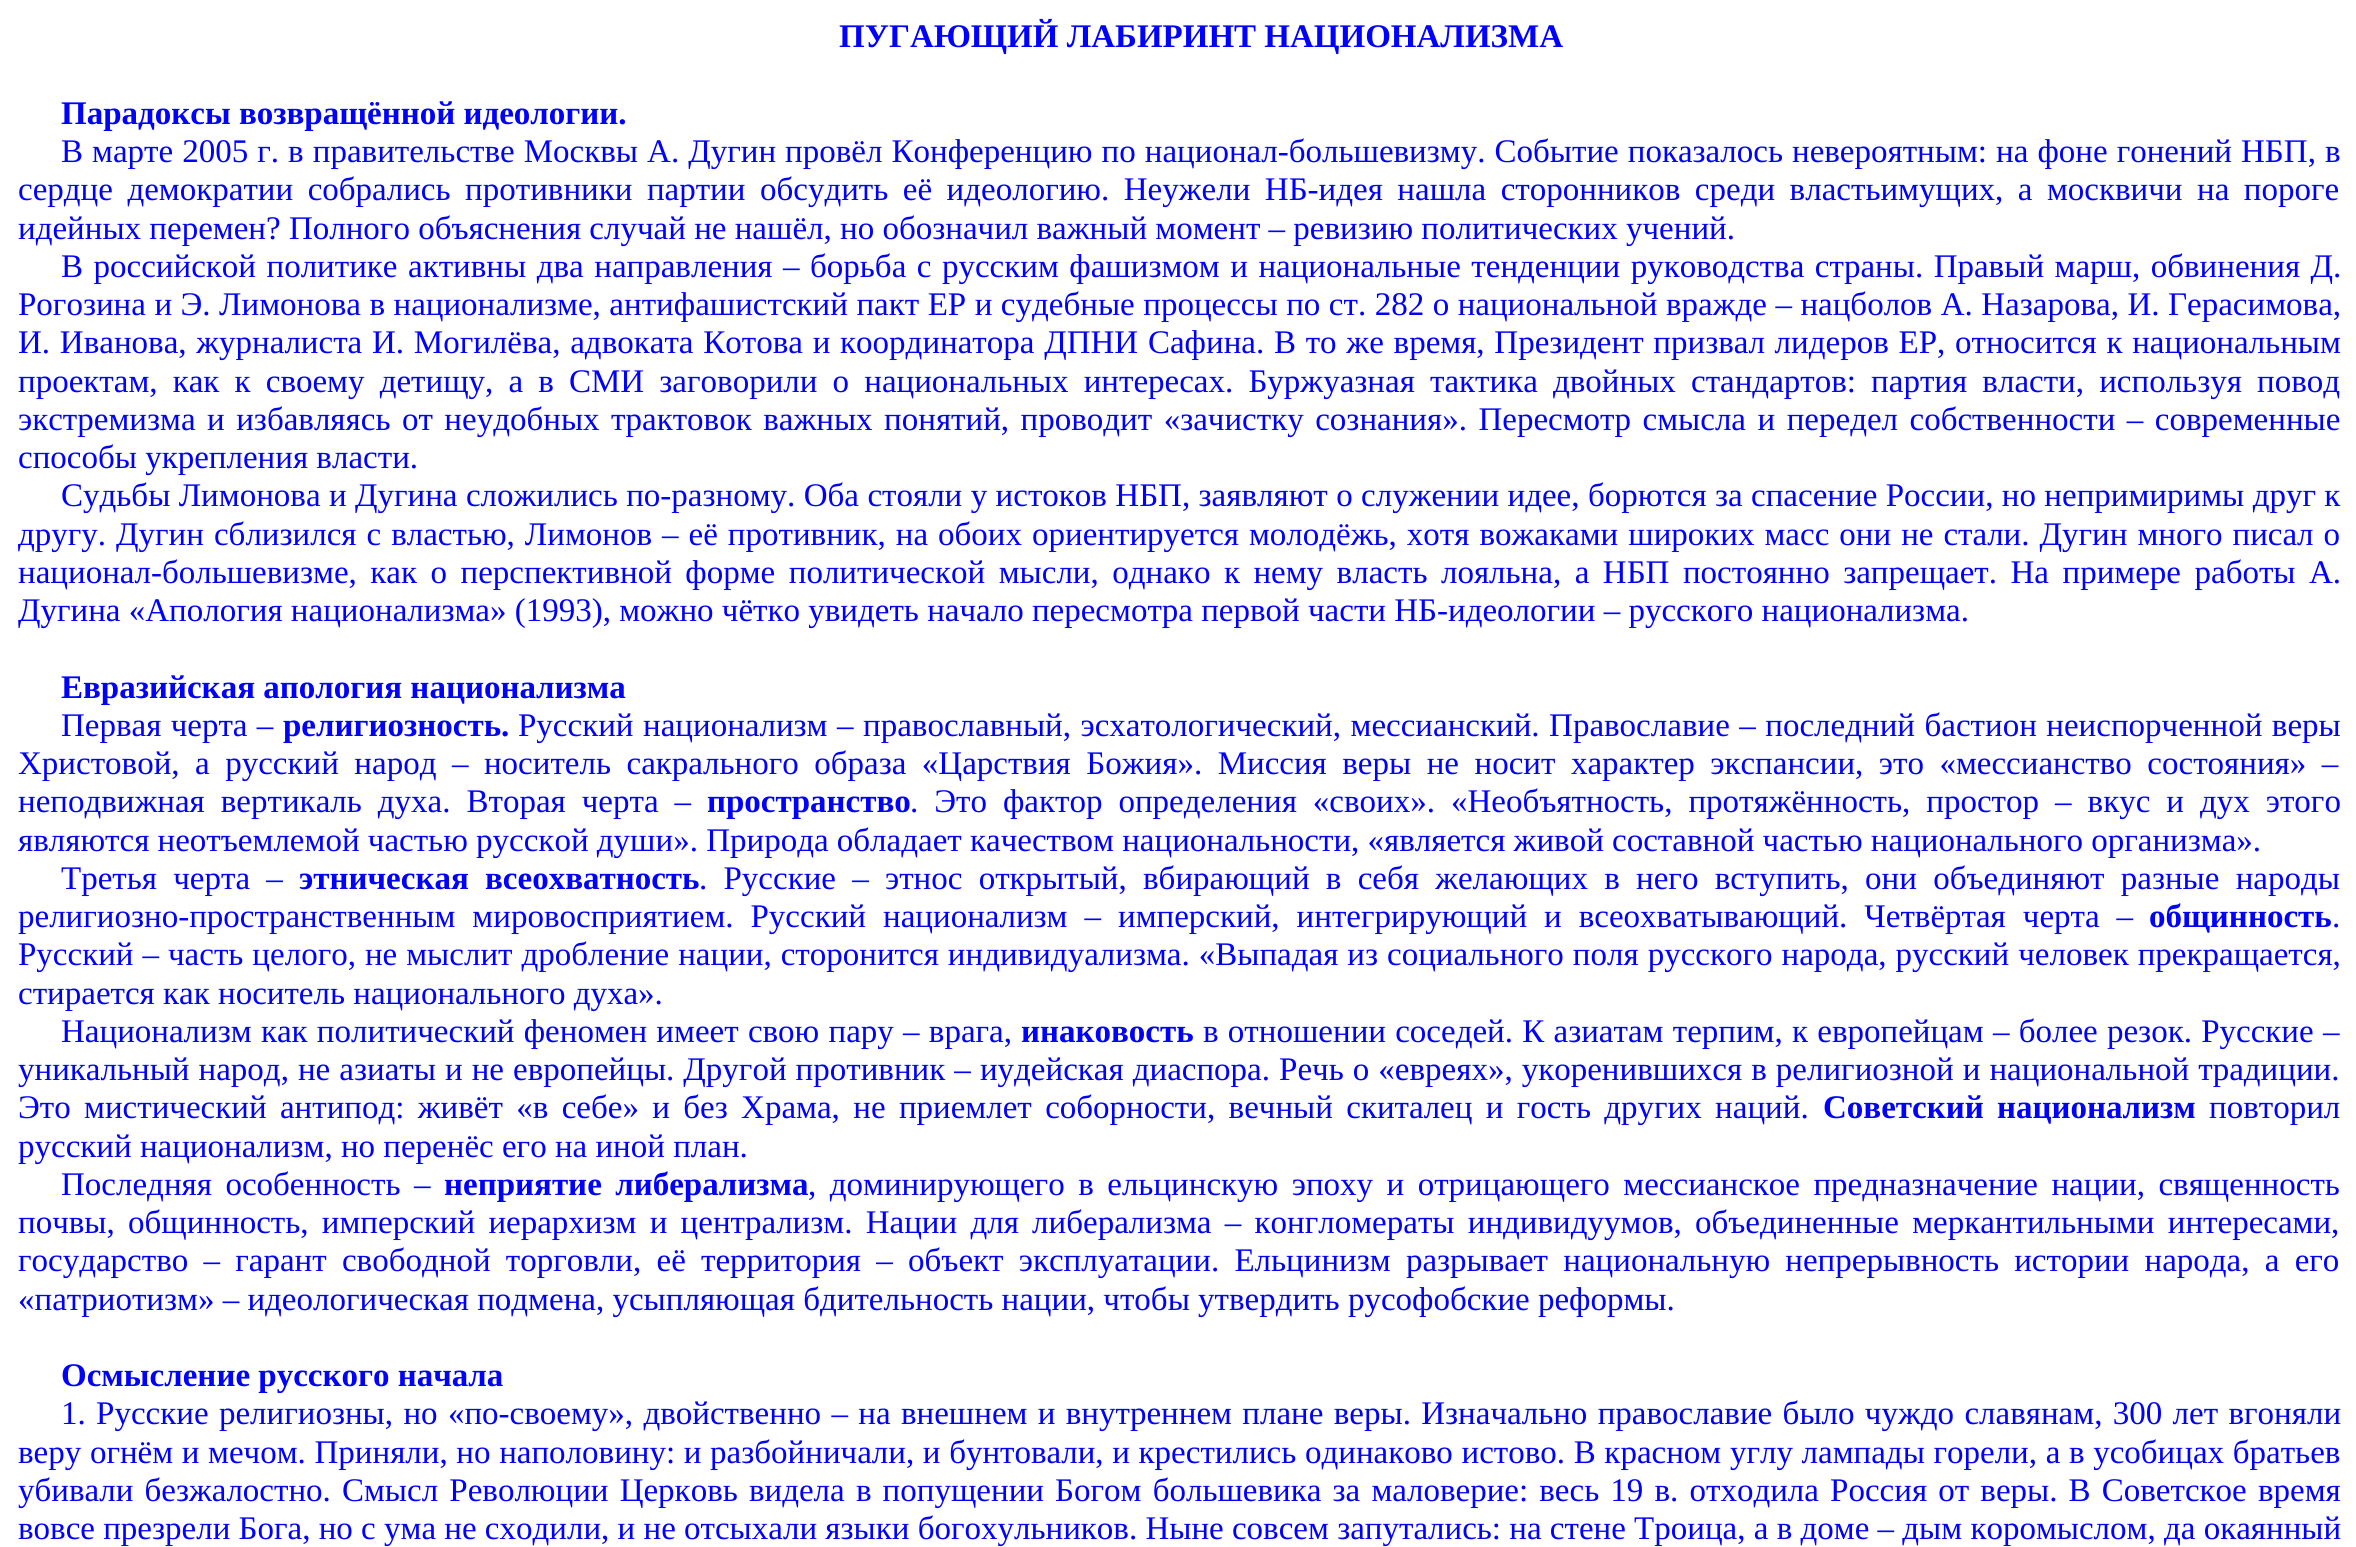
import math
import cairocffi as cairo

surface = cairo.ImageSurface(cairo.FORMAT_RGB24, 2356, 1547)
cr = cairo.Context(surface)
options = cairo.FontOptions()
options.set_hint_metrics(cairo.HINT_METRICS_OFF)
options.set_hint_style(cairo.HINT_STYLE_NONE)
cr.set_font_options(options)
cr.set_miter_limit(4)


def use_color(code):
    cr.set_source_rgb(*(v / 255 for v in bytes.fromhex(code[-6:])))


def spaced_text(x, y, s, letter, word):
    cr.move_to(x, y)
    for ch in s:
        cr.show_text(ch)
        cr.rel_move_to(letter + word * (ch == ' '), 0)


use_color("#ffffff")
cr.paint()
cr.select_font_face("Liberation Serif", cairo.FONT_SLANT_NORMAL, cairo.FONT_WEIGHT_BOLD)
cr.set_font_size(33)
use_color("#0000ff")
cr.move_to(839, 47)
cr.show_text("ПУГАЮЩИЙ ЛАБИРИНТ НАЦИОНАЛИЗМА")
cr.move_to(61, 124)
cr.show_text("Парадоксы возвращённой идеологии.")
cr.select_font_face("Liberation Serif")
spaced_text(61, 162, "В марте 2005 г. в правительстве Москвы А. Дугин провёл Конференцию по национал-большевизму. Событие показалось невероятным: на фоне гонений НБП, в", 0, 0.8)
spaced_text(18, 200, "сердце демократии собрались противники партии обсудить её идеологию. Неужели НБ-идея нашла сторонников среди властьимущих, а москвичи на пороге", 0, 6.25)
cr.move_to(18, 239)
cr.show_text("идейных перемен? Полного объяснения случай не нашёл, но обозначил важный момент – ревизию политических учений.")
spaced_text(61, 277, "В российской политике активны два направления – борьба с русским фашизмом и национальные тенденции руководства страны. Правый марш, обвинения Д.", 0, 2.25)
spaced_text(18, 315, "Рогозина и Э. Лимонова в национализме, антифашистский пакт ЕР и судебные процессы по ст. 282 о национальной вражде – нацболов А. Назарова, И. Герасимова,", 0, 0.25)
spaced_text(18, 353, "И. Иванова, журналиста И. Могилёва, адвоката Котова и координатора ДПНИ Сафина. В то же время, Президент призвал лидеров ЕР, относится к национальным", 0, 1.5)
spaced_text(18, 392, "проектам, как к своему детищу, а в СМИ заговорили о национальных интересах. Буржуазная тактика двойных стандартов: партия власти, используя повод", 0, 6.9)
spaced_text(18, 430, "экстремизма и избавляясь от неудобных трактовок важных понятий, проводит «зачистку сознания». Пересмотр смысла и передел собственности – современные", 0, 3.25)
cr.move_to(18, 468)
cr.show_text("способы укрепления власти.")
spaced_text(61, 506, "Судьбы Лимонова и Дугина сложились по-разному. Оба стояли у истоков НБП, заявляют о служении идее, борются за спасение России, но непримиримы друг к", 0, 0.15)
spaced_text(18, 545, "другу. Дугин сблизился с властью, Лимонов – её противник, на обоих ориентируется молодёжь, хотя вожаками широких масс они не стали. Дугин много писал о", 0, 1.75)
spaced_text(18, 583, "национал-большевизме, как о перспективной форме политической мысли, однако к нему власть лояльна, а НБП постоянно запрещает. На примере работы А.", 0, 5.25)
cr.move_to(18, 621)
cr.show_text("Дугина «Апология национализма» (1993), можно чётко увидеть начало пересмотра первой части НБ-идеологии – русского национализма.")
cr.select_font_face("Liberation Serif", cairo.FONT_SLANT_NORMAL, cairo.FONT_WEIGHT_BOLD)
cr.move_to(61, 698)
cr.show_text("Евразийская апология национализма")
cr.select_font_face("Liberation Serif")
spaced_text(61, 736, "Первая черта –", 0, 1)
cr.select_font_face("Liberation Serif", cairo.FONT_SLANT_NORMAL, cairo.FONT_WEIGHT_BOLD)
cr.move_to(283, 736)
cr.show_text("религиозность.")
cr.select_font_face("Liberation Serif")
spaced_text(518, 736, "Русский национализм – православный, эсхатологический, мессианский. Православие – последний бастион неиспорченной веры", 0, 1.25)
spaced_text(18, 774, "Христовой, а русский народ – носитель сакрального образа «Царствия Божия». Миссия веры не носит характер экспансии, это «мессианство состояния» –", 0, 7.25)
spaced_text(18, 812, "неподвижная вертикаль духа. Вторая черта –", 0, 7.75)
cr.select_font_face("Liberation Serif", cairo.FONT_SLANT_NORMAL, cairo.FONT_WEIGHT_BOLD)
cr.move_to(707, 812)
cr.show_text("пространство")
cr.select_font_face("Liberation Serif")
spaced_text(910, 812, ". Это фактор определения «своих». «Необъятность, протяжённость, простор – вкус и дух этого", 0, 7.75)
cr.move_to(18, 851)
cr.show_text("являются неотъемлемой частью русской души». Природа обладает качеством национальности, «является живой составной частью национального организма».")
spaced_text(61, 889, "Третья черта –", 0, 8)
cr.select_font_face("Liberation Serif", cairo.FONT_SLANT_NORMAL, cairo.FONT_WEIGHT_BOLD)
spaced_text(299, 889, "этническая всеохватность", 0, 8)
cr.select_font_face("Liberation Serif")
spaced_text(699, 889, ". Русские – этнос открытый, вбирающий в себя желающих в него вступить, они объединяют разные народы", 0, 8)
spaced_text(18, 927, "религиозно-пространственным мировосприятием. Русский национализм – имперский, интегрирующий и всеохватывающий. Четвёртая черта –", 0, 8.75)
cr.select_font_face("Liberation Serif", cairo.FONT_SLANT_NORMAL, cairo.FONT_WEIGHT_BOLD)
cr.move_to(2149, 927)
cr.show_text("общинность")
cr.select_font_face("Liberation Serif")
cr.move_to(2332, 927)
cr.show_text(".")
spaced_text(18, 965, "Русский – часть целого, не мыслит дробление нации, сторонится индивидуализма. «Выпадая из социального поля русского народа, русский человек прекращается,", 0, 0.75)
cr.move_to(18, 1004)
cr.show_text("стирается как носитель национального духа».")
spaced_text(61, 1042, "Национализм как политический феномен имеет свою пару – врага,", 0, 1)
cr.select_font_face("Liberation Serif", cairo.FONT_SLANT_NORMAL, cairo.FONT_WEIGHT_BOLD)
cr.move_to(1021, 1042)
cr.show_text("инаковость")
cr.select_font_face("Liberation Serif")
spaced_text(1203, 1042, "в отношении соседей. К азиатам терпим, к европейцам – более резок. Русские –", 0, 1)
spaced_text(18, 1080, "уникальный народ, не азиаты и не европейцы. Другой противник – иудейская диаспора. Речь о «евреях», укоренившихся в религиозной и национальной традиции.", 0, 0.8)
spaced_text(18, 1118, "Это мистический антипод: живёт «в себе» и без Храма, не приемлет соборности, вечный скиталец и гость других наций.", 0, 5.1)
cr.select_font_face("Liberation Serif", cairo.FONT_SLANT_NORMAL, cairo.FONT_WEIGHT_BOLD)
spaced_text(1823, 1118, "Советский национализм", 0, 5)
cr.select_font_face("Liberation Serif")
cr.move_to(2209, 1118)
cr.show_text("повторил")
cr.move_to(18, 1157)
cr.show_text("русский национализм, но перенёс его на иной план.")
spaced_text(61, 1195, "Последняя особенность –", 0, 5.25)
cr.select_font_face("Liberation Serif", cairo.FONT_SLANT_NORMAL, cairo.FONT_WEIGHT_BOLD)
spaced_text(444, 1195, "неприятие либерализма", 0, 5.1)
cr.select_font_face("Liberation Serif")
spaced_text(808, 1195, ", доминирующего в ельцинскую эпоху и отрицающего мессианское предназначение нации, священность", 0, 5.25)
spaced_text(18, 1233, "почвы, общинность, имперский иерархизм и централизм. Нации для либерализма – конгломераты индивидуумов, объединенные меркантильными интересами,", 0, 5)
spaced_text(18, 1271, "государство – гарант свободной торговли, её территория – объект эксплуатации. Ельцинизм разрывает национальную непрерывность истории народа, а его", 0, 7)
cr.move_to(18, 1310)
cr.show_text("«патриотизм» – идеологическая подмена, усыпляющая бдительность нации, чтобы утвердить русофобские реформы.")
cr.select_font_face("Liberation Serif", cairo.FONT_SLANT_NORMAL, cairo.FONT_WEIGHT_BOLD)
cr.move_to(61, 1386)
cr.show_text("Осмысление русского начала")
cr.select_font_face("Liberation Serif")
spaced_text(61, 1424, "1. Русские религиозны, но «по-своему», двойственно – на внешнем и внутреннем плане веры. Изначально православие было чуждо славянам, 300 лет вгоняли", 0, 2.1)
spaced_text(18, 1463, "веру огнём и мечом. Приняли, но наполовину: и разбойничали, и бунтовали, и крестились одинаково истово. В красном углу лампады горели, а в усобицах братьев", 0, 0.4)
spaced_text(18, 1501, "убивали безжалостно. Смысл Революции Церковь видела в попущении Богом большевика за маловерие: весь 19 в. отходила Россия от веры. В Советское время", 0, 2.9)
cr.move_to(18, 1539)
cr.show_text("вовсе презрели Бога, но с ума не сходили, и не отсыхали языки богохульников. Ныне совсем запутались: на стене Троица, а в доме – дым коромыслом, да окаянный")
surface.write_to_png("result.png")
